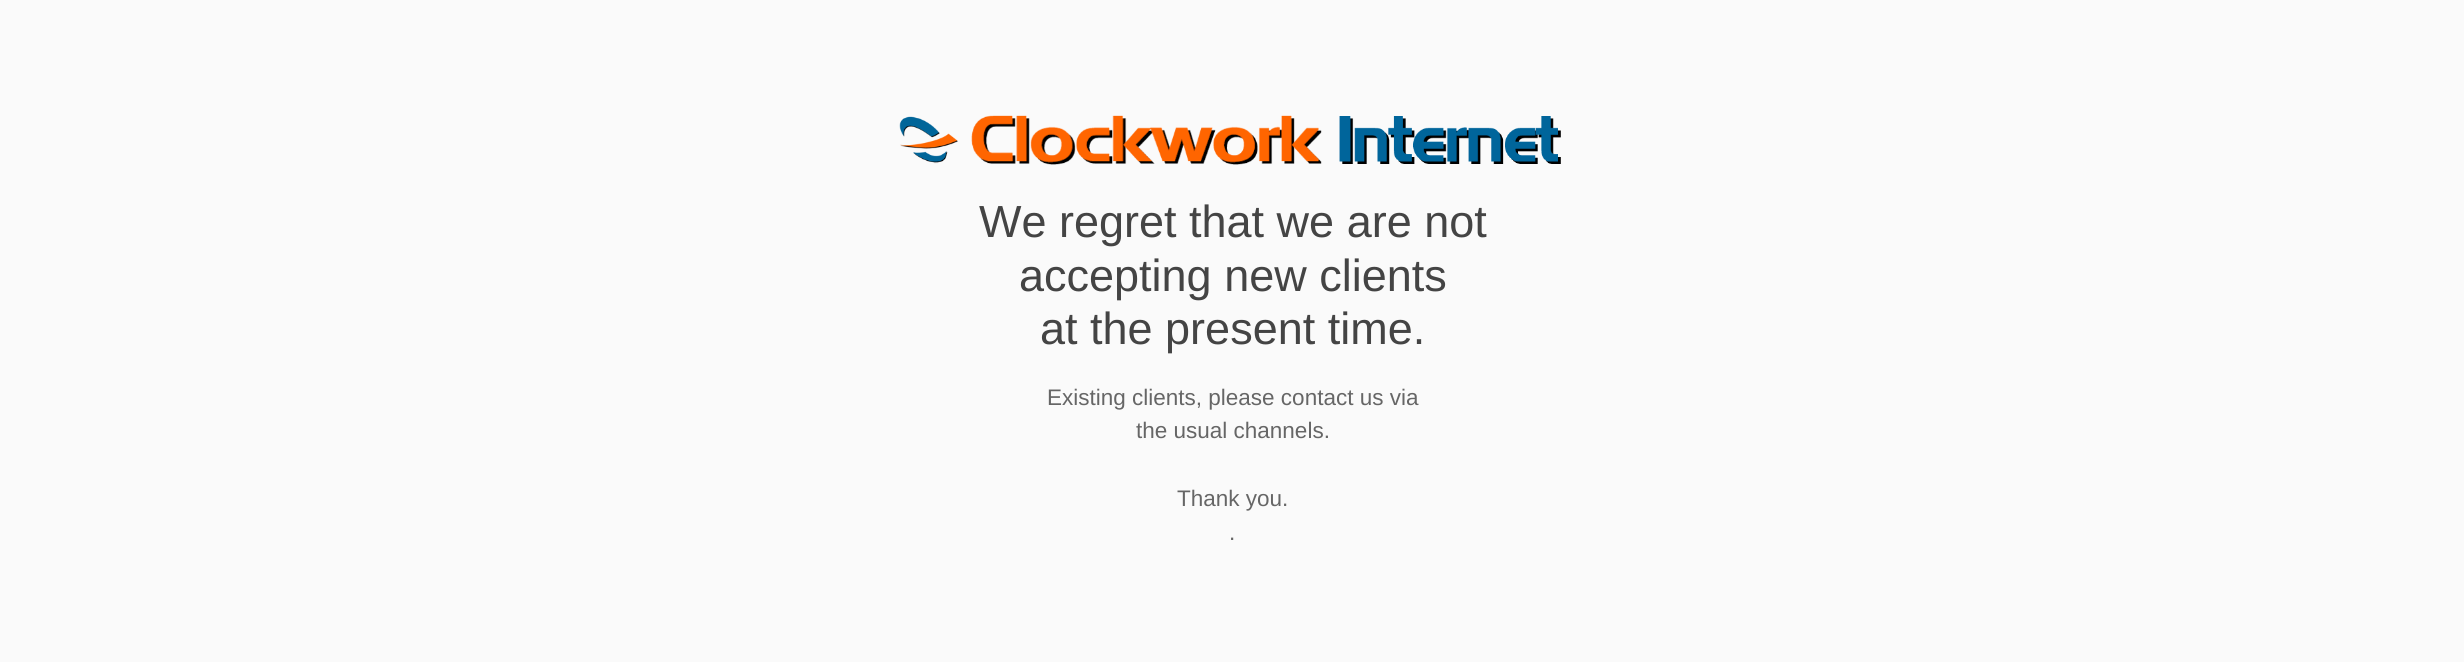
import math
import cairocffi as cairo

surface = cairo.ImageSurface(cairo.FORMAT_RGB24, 2464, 662)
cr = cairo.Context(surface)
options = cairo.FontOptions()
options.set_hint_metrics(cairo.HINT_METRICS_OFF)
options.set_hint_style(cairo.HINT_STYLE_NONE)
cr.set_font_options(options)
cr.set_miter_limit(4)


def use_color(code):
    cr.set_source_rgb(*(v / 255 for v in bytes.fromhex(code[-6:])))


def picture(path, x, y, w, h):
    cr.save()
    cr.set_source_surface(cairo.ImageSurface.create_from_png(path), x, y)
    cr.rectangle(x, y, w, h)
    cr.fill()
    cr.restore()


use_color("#fafafa")
cr.paint()
picture("img1.png", 899, 115, 662, 50)
cr.select_font_face("Liberation Sans")
cr.set_font_size(45)
use_color("#444444")
cr.move_to(979, 237)
cr.show_text("We regret that we are not")
cr.move_to(1019, 291)
cr.show_text("accepting new clients")
cr.move_to(1040, 344)
cr.show_text("at the present time.")
cr.set_font_size(22.5)
use_color("#666666")
cr.move_to(1047, 405)
cr.show_text("Existing clients, please contact us via")
cr.move_to(1136, 438)
cr.show_text("the usual channels.")
cr.move_to(1177, 506)
cr.show_text("Thank you.")
cr.move_to(1229, 540)
cr.show_text(".")
surface.write_to_png("result.png")
